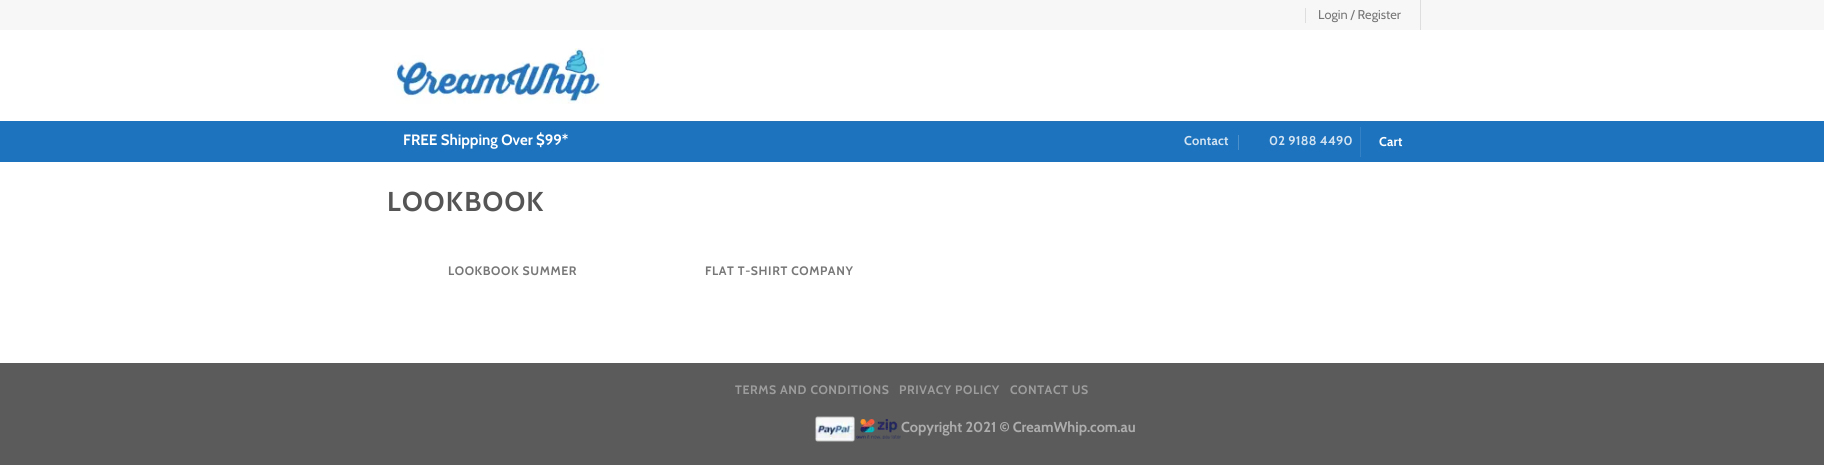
import math
import cairocffi as cairo

surface = cairo.ImageSurface(cairo.FORMAT_RGB24, 1824, 474)
cr = cairo.Context(surface)
options = cairo.FontOptions()
options.set_hint_metrics(cairo.HINT_METRICS_OFF)
options.set_hint_style(cairo.HINT_STYLE_NONE)
cr.set_font_options(options)
cr.set_miter_limit(4)


def use_color(code):
    cr.set_source_rgb(*(v / 255 for v in bytes.fromhex(code[-6:])))


def spaced_text(x, y, s, letter, word):
    cr.move_to(x, y)
    for ch in s:
        cr.show_text(ch)
        cr.rel_move_to(letter + word * (ch == ' '), 0)


def picture(path, x, y, w, h):
    cr.save()
    cr.set_source_surface(cairo.ImageSurface.create_from_png(path), x, y)
    cr.rectangle(x, y, w, h)
    cr.fill()
    cr.restore()


use_color("#ffffff")
cr.paint()
use_color("#f7f7f7")
cr.rectangle(0, 0, 1824, 30)
cr.fill()
use_color("#dedede")
cr.rectangle(1305, 8, 1, 15)
cr.fill()
cr.select_font_face("Cabin")
cr.set_font_size(12.75)
use_color("#777777")
cr.move_to(1318, 19)
cr.show_text("Login / Register")
use_color("#dedede")
cr.rectangle(1420, 0, 1, 30)
cr.fill()
picture("img1.png", 394, 48, 210, 56)
use_color("#1e73be")
cr.rectangle(0, 121, 1824, 41)
cr.fill()
use_color("#2672b6")
cr.rectangle(387, 121, 1050, 1)
cr.fill()
cr.select_font_face("Cabin", cairo.FONT_SLANT_NORMAL, cairo.FONT_WEIGHT_BOLD)
cr.set_font_size(15)
use_color("#ffffff")
cr.move_to(403, 145)
cr.show_text("FREE Shipping Over $99*")
cr.set_font_size(12.75)
use_color("#d2e3f2")
spaced_text(1184, 145, "Contact", 0.25, 0)
use_color("#4b8fcb")
cr.rectangle(1238, 135, 1, 15)
cr.fill()
use_color("#d2e3f2")
spaced_text(1269, 145, "02 9188 4490", 0.25, 0)
use_color("#3581c5")
cr.rectangle(1360, 127, 1, 30)
cr.fill()
use_color("#ffffff")
spaced_text(1379, 146, "Cart", 0.25, 0)
cr.set_font_size(27.25)
use_color("#555555")
spaced_text(387, 211, "LOOKBOOK", 1.25, 0)
cr.set_font_size(12.25)
use_color("#777777")
spaced_text(448, 275, "LOOKBOOK SUMMER", 0.6, 0)
spaced_text(705, 275, "FLAT T-SHIRT COMPANY", 0.6, 0)
use_color("#5b5b5b")
cr.rectangle(0, 363, 1824, 102)
cr.fill()
use_color("#9d9d9d")
spaced_text(735, 394, "TERMS AND CONDITIONS", 0.6, 0)
spaced_text(899, 394, "PRIVACY POLICY", 0.6, 0)
spaced_text(1010, 394, "CONTACT US", 0.6, 0)
picture("img2.png", 815, 416, 40, 26)
picture("img3.png", 856, 419, 45, 20)
cr.set_font_size(14.4)
use_color("#adadad")
cr.move_to(901, 432)
cr.show_text("Copyright 2021 © CreamWhip.com.au")
surface.write_to_png("result.png")
